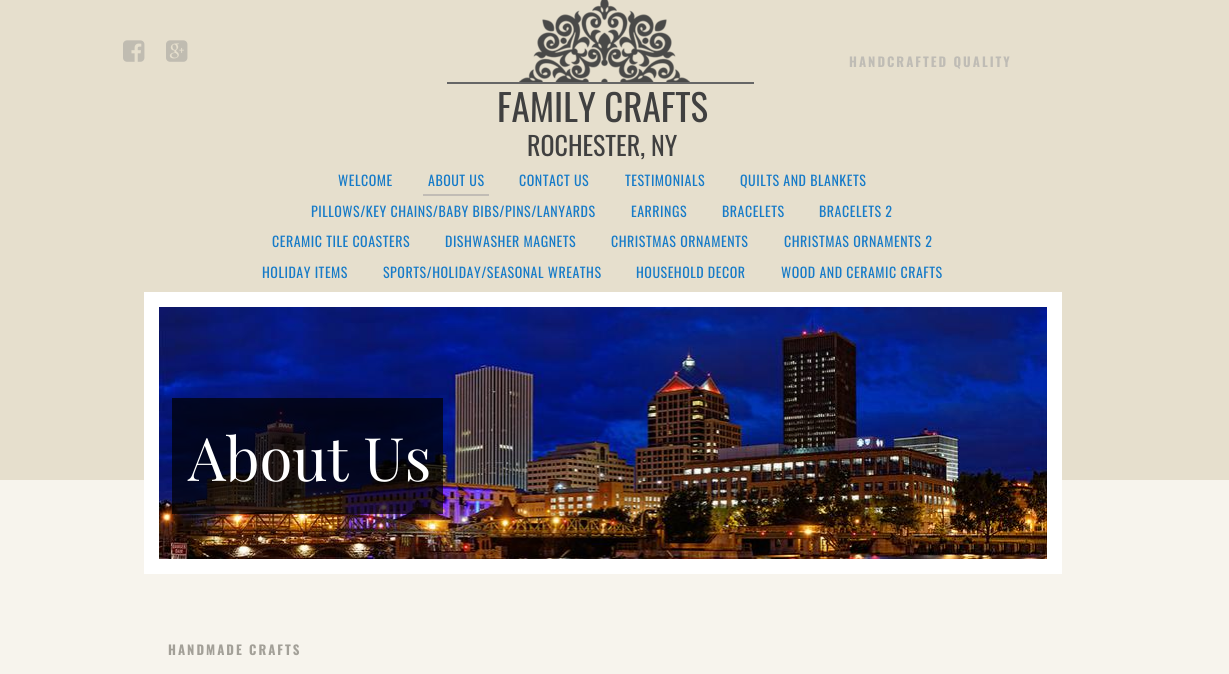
import math
import cairocffi as cairo

surface = cairo.ImageSurface(cairo.FORMAT_RGB24, 1229, 674)
cr = cairo.Context(surface)
options = cairo.FontOptions()
options.set_hint_metrics(cairo.HINT_METRICS_OFF)
options.set_hint_style(cairo.HINT_STYLE_NONE)
cr.set_font_options(options)
cr.set_miter_limit(4)


def use_color(code):
    cr.set_source_rgb(*(v / 255 for v in bytes.fromhex(code[-6:])))


def spaced_text(x, y, s, letter, word):
    cr.move_to(x, y)
    for ch in s:
        cr.show_text(ch)
        cr.rel_move_to(letter + word * (ch == ' '), 0)


def picture(path, x, y, w, h):
    cr.save()
    cr.set_source_surface(cairo.ImageSurface.create_from_png(path), x, y)
    cr.rectangle(x, y, w, h)
    cr.fill()
    cr.restore()


use_color("#f7f4ed")
cr.paint()
use_color("#e6dfcd")
cr.rectangle(0, 0, 1229, 480)
cr.fill()
picture("img1.png", 123, 40, 22, 22)
picture("img2.png", 166, 40, 22, 22)
picture("img3.png", 519, 0, 171, 82)
cr.select_font_face("Oswald", cairo.FONT_SLANT_NORMAL, cairo.FONT_WEIGHT_BOLD)
cr.set_font_size(13)
use_color("#bfbcb5")
spaced_text(849, 67, "HANDCRAFTED QUALITY", 2, 0)
use_color("#666666")
cr.rectangle(447, 82, 307, 2)
cr.fill()
cr.select_font_face("Oswald")
cr.set_font_size(37)
use_color("#404040")
cr.move_to(497, 122)
cr.show_text("FAMILY CRAFTS")
cr.set_font_size(26)
cr.move_to(527, 156)
cr.show_text("ROCHESTER, NY")
cr.set_font_size(14)
use_color("#177bc8")
spaced_text(338, 186, "WELCOME", 0.5, 0)
use_color("#c1bcb5")
cr.rectangle(423, 194, 66, 2)
cr.fill()
use_color("#177bc8")
spaced_text(428, 186, "ABOUT US", 0.5, 0)
spaced_text(519, 186, "CONTACT US", 0.5, 0)
spaced_text(625, 186, "TESTIMONIALS", 0.5, 0)
spaced_text(740, 186, "QUILTS AND BLANKETS", 0.5, 0)
spaced_text(311, 217, "PILLOWS/KEY CHAINS/BABY BIBS/PINS/LANYARDS", 0.5, 0)
spaced_text(631, 217, "EARRINGS", 0.5, 0)
spaced_text(722, 217, "BRACELETS", 0.5, 0)
spaced_text(819, 217, "BRACELETS 2", 0.5, 0)
spaced_text(272, 247, "CERAMIC TILE COASTERS", 0.5, 0)
spaced_text(445, 247, "DISHWASHER MAGNETS", 0.5, 0)
spaced_text(611, 247, "CHRISTMAS ORNAMENTS", 0.5, 0)
spaced_text(784, 247, "CHRISTMAS ORNAMENTS 2", 0.5, 0)
spaced_text(262, 278, "HOLIDAY ITEMS", 0.5, 0)
spaced_text(383, 278, "SPORTS/HOLIDAY/SEASONAL WREATHS", 0.5, 0)
spaced_text(636, 278, "HOUSEHOLD DECOR", 0.5, 0)
spaced_text(781, 278, "WOOD AND CERAMIC CRAFTS", 0.5, 0)
cr.rectangle(151.5, 299.5, 903, 267)
use_color("#ffffff")
cr.set_line_width(15)
cr.stroke()
picture("img4.png", 159, 307, 888, 252)
cr.set_source_rgba(0, 0, 0, 0.7)
cr.rectangle(172, 398, 271, 116)
cr.fill()
cr.select_font_face("Playfair Display")
cr.set_font_size(60)
use_color("#ffffff")
cr.move_to(188, 481)
cr.show_text("About Us")
cr.select_font_face("Oswald", cairo.FONT_SLANT_NORMAL, cairo.FONT_WEIGHT_BOLD)
cr.set_font_size(13)
use_color("#a3a098")
spaced_text(168, 655, "HANDMADE CRAFTS", 2, 0)
surface.write_to_png("result.png")
